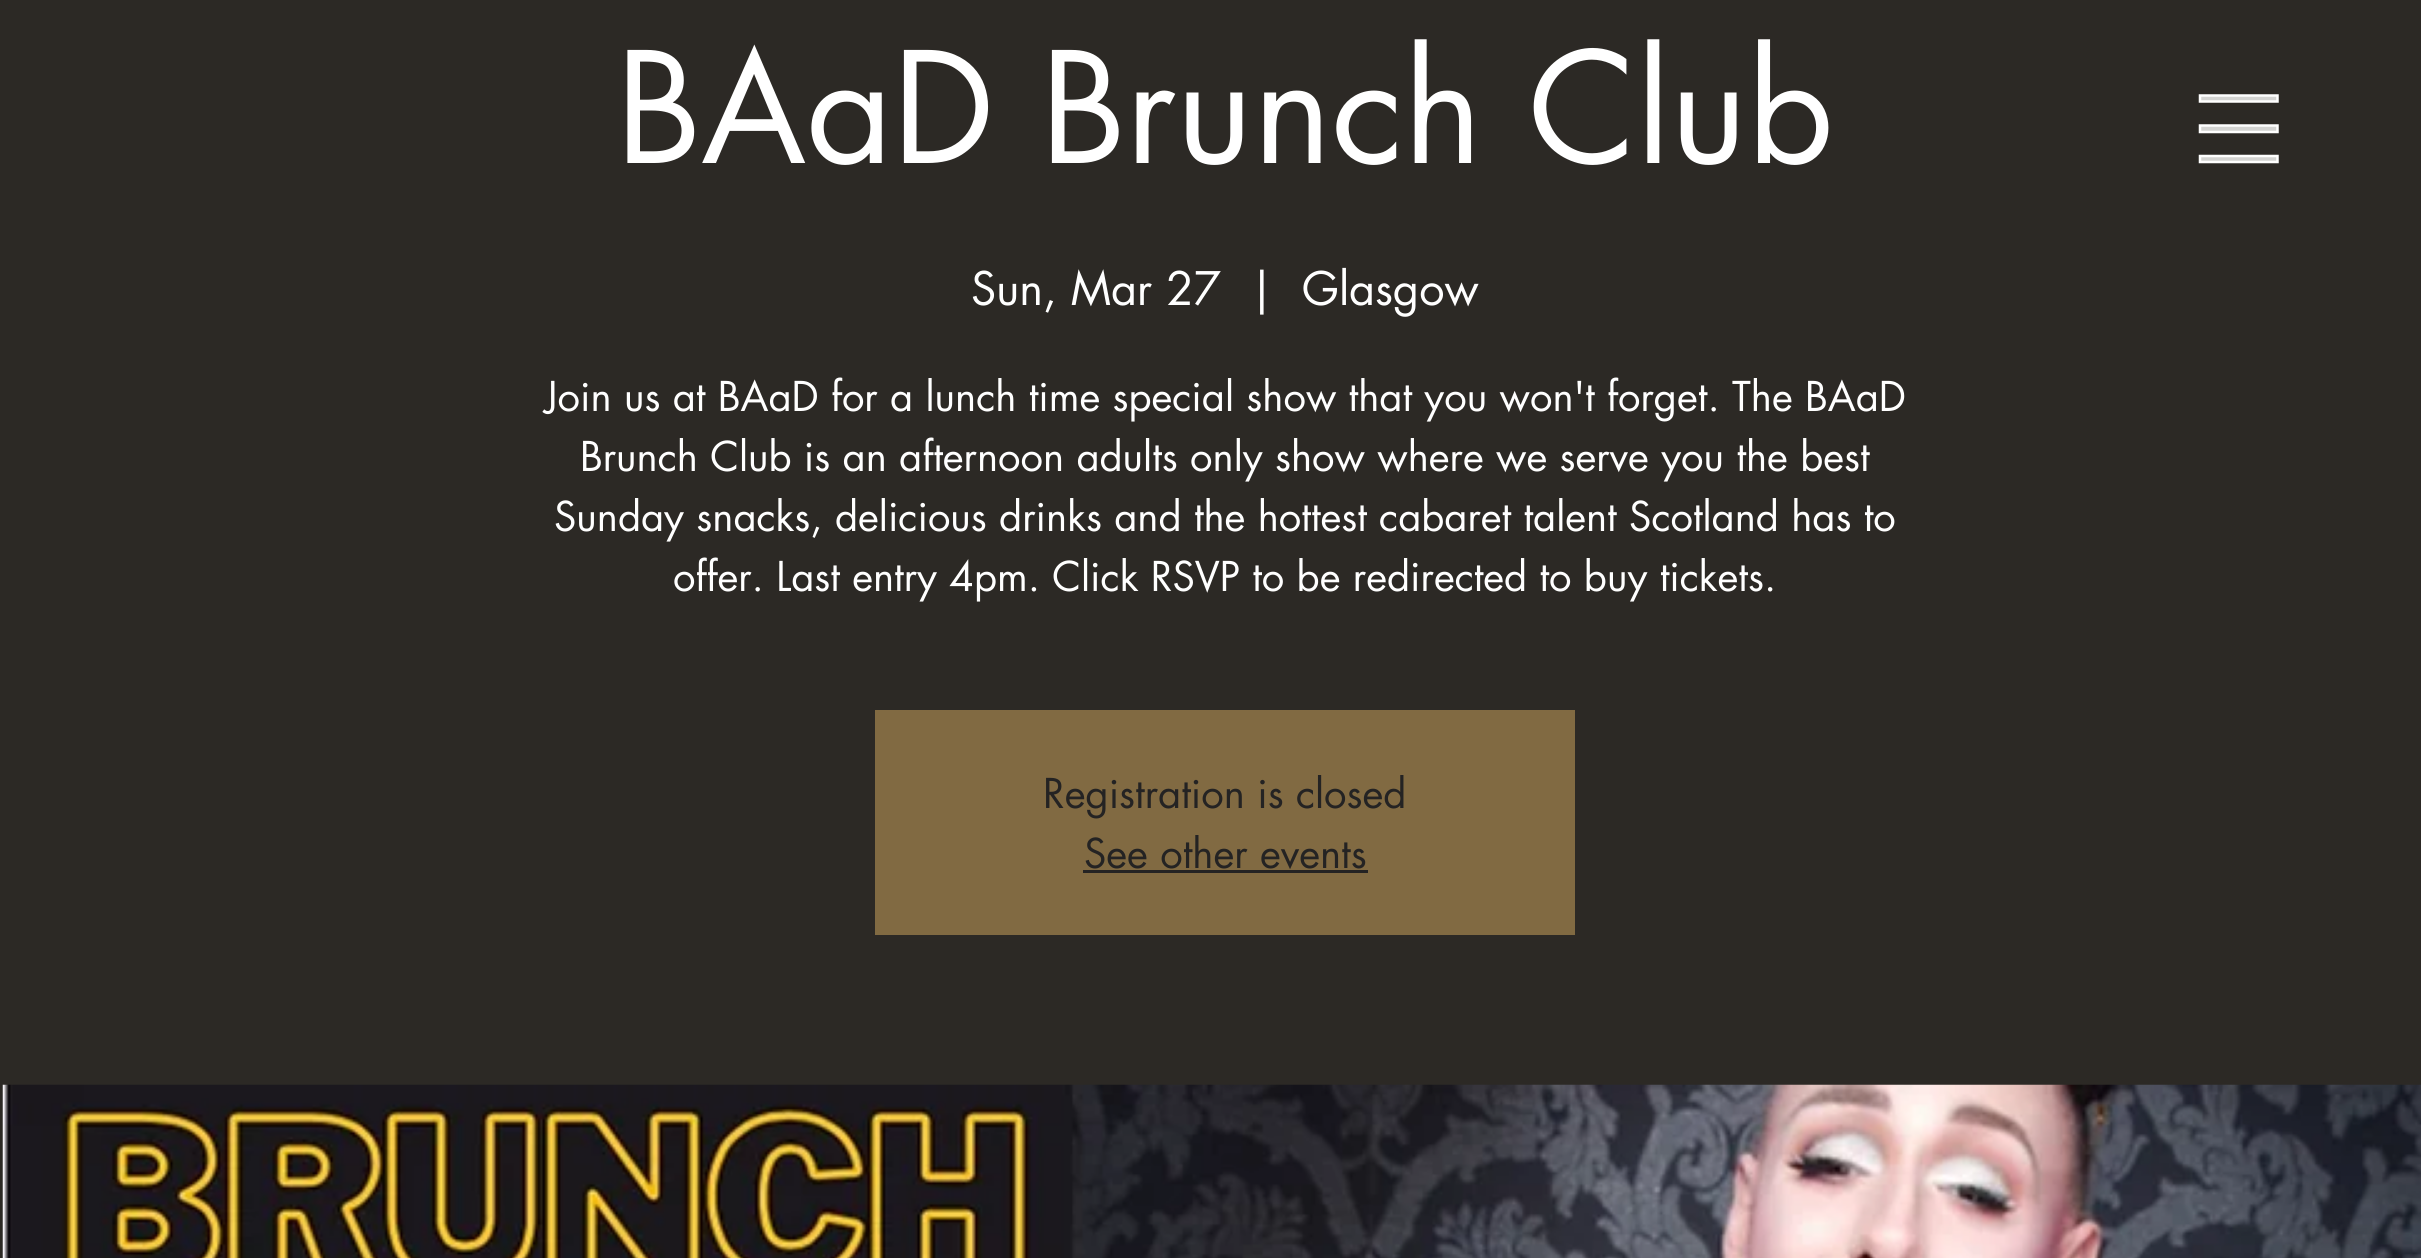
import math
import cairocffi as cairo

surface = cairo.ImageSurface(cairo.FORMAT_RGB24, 2421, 1258)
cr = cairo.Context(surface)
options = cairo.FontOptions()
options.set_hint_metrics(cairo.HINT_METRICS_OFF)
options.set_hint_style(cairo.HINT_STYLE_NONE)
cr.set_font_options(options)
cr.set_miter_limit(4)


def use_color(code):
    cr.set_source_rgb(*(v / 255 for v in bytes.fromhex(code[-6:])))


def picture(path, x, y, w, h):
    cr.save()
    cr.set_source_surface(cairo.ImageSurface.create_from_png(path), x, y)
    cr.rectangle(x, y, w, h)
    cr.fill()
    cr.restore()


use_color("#2c2925")
cr.paint()
cr.select_font_face("futura")
cr.set_font_size(150)
use_color("#ffffff")
cr.move_to(616, 163)
cr.show_text("BAaD Brunch Club")
cr.set_font_size(45)
cr.move_to(971, 305)
cr.show_text("Sun, Mar 27")
cr.move_to(1249, 305)
cr.show_text("|")
cr.move_to(1302, 305)
cr.show_text("Glasgow")
cr.set_font_size(40)
cr.move_to(545, 411)
cr.show_text("Join us at BAaD for a lunch time special show that you won't forget. The BAaD")
cr.move_to(580, 471)
cr.show_text("Brunch Club is an afternoon adults only show where we serve you the best")
cr.move_to(554, 531)
cr.show_text("Sunday snacks, delicious drinks and the hottest cabaret talent Scotland has to")
cr.move_to(673, 591)
cr.show_text("offer. Last entry 4pm. Click RSVP to be redirected to buy tickets.")
use_color("#816a42")
cr.rectangle(875, 710, 700, 225)
cr.fill()
use_color("#242323")
cr.move_to(1043, 808)
cr.show_text("Registration is closed")
cr.move_to(1084, 868)
cr.show_text("See other events")
cr.rectangle(1083, 870, 285, 3)
cr.fill()
picture("img1.png", 2, 1084, 2419, 174)
use_color("#d4d4d2")
cr.rectangle(2200, 96, 78, 5)
cr.fill()
cr.new_path()
cr.move_to(2277.5, 95.5)
cr.line_to(2277.5, 101.5)
cr.line_to(2200, 101.5)
cr.line_to(2200, 95.5)
cr.close_path()
use_color("#ffffff")
cr.set_line_width(2.5)
cr.stroke()
use_color("#d4d4d2")
cr.rectangle(2200, 126, 78, 5)
cr.fill()
cr.new_path()
cr.move_to(2277.5, 125.5)
cr.line_to(2277.5, 132)
cr.line_to(2200, 132)
cr.line_to(2200, 125.5)
cr.close_path()
use_color("#ffffff")
cr.stroke()
use_color("#d4d4d2")
cr.rectangle(2200, 157, 78, 4)
cr.fill()
cr.new_path()
cr.move_to(2277.5, 156)
cr.line_to(2277.5, 162)
cr.line_to(2200, 162)
cr.line_to(2200, 156)
cr.close_path()
use_color("#ffffff")
cr.stroke()
surface.write_to_png("result.png")
